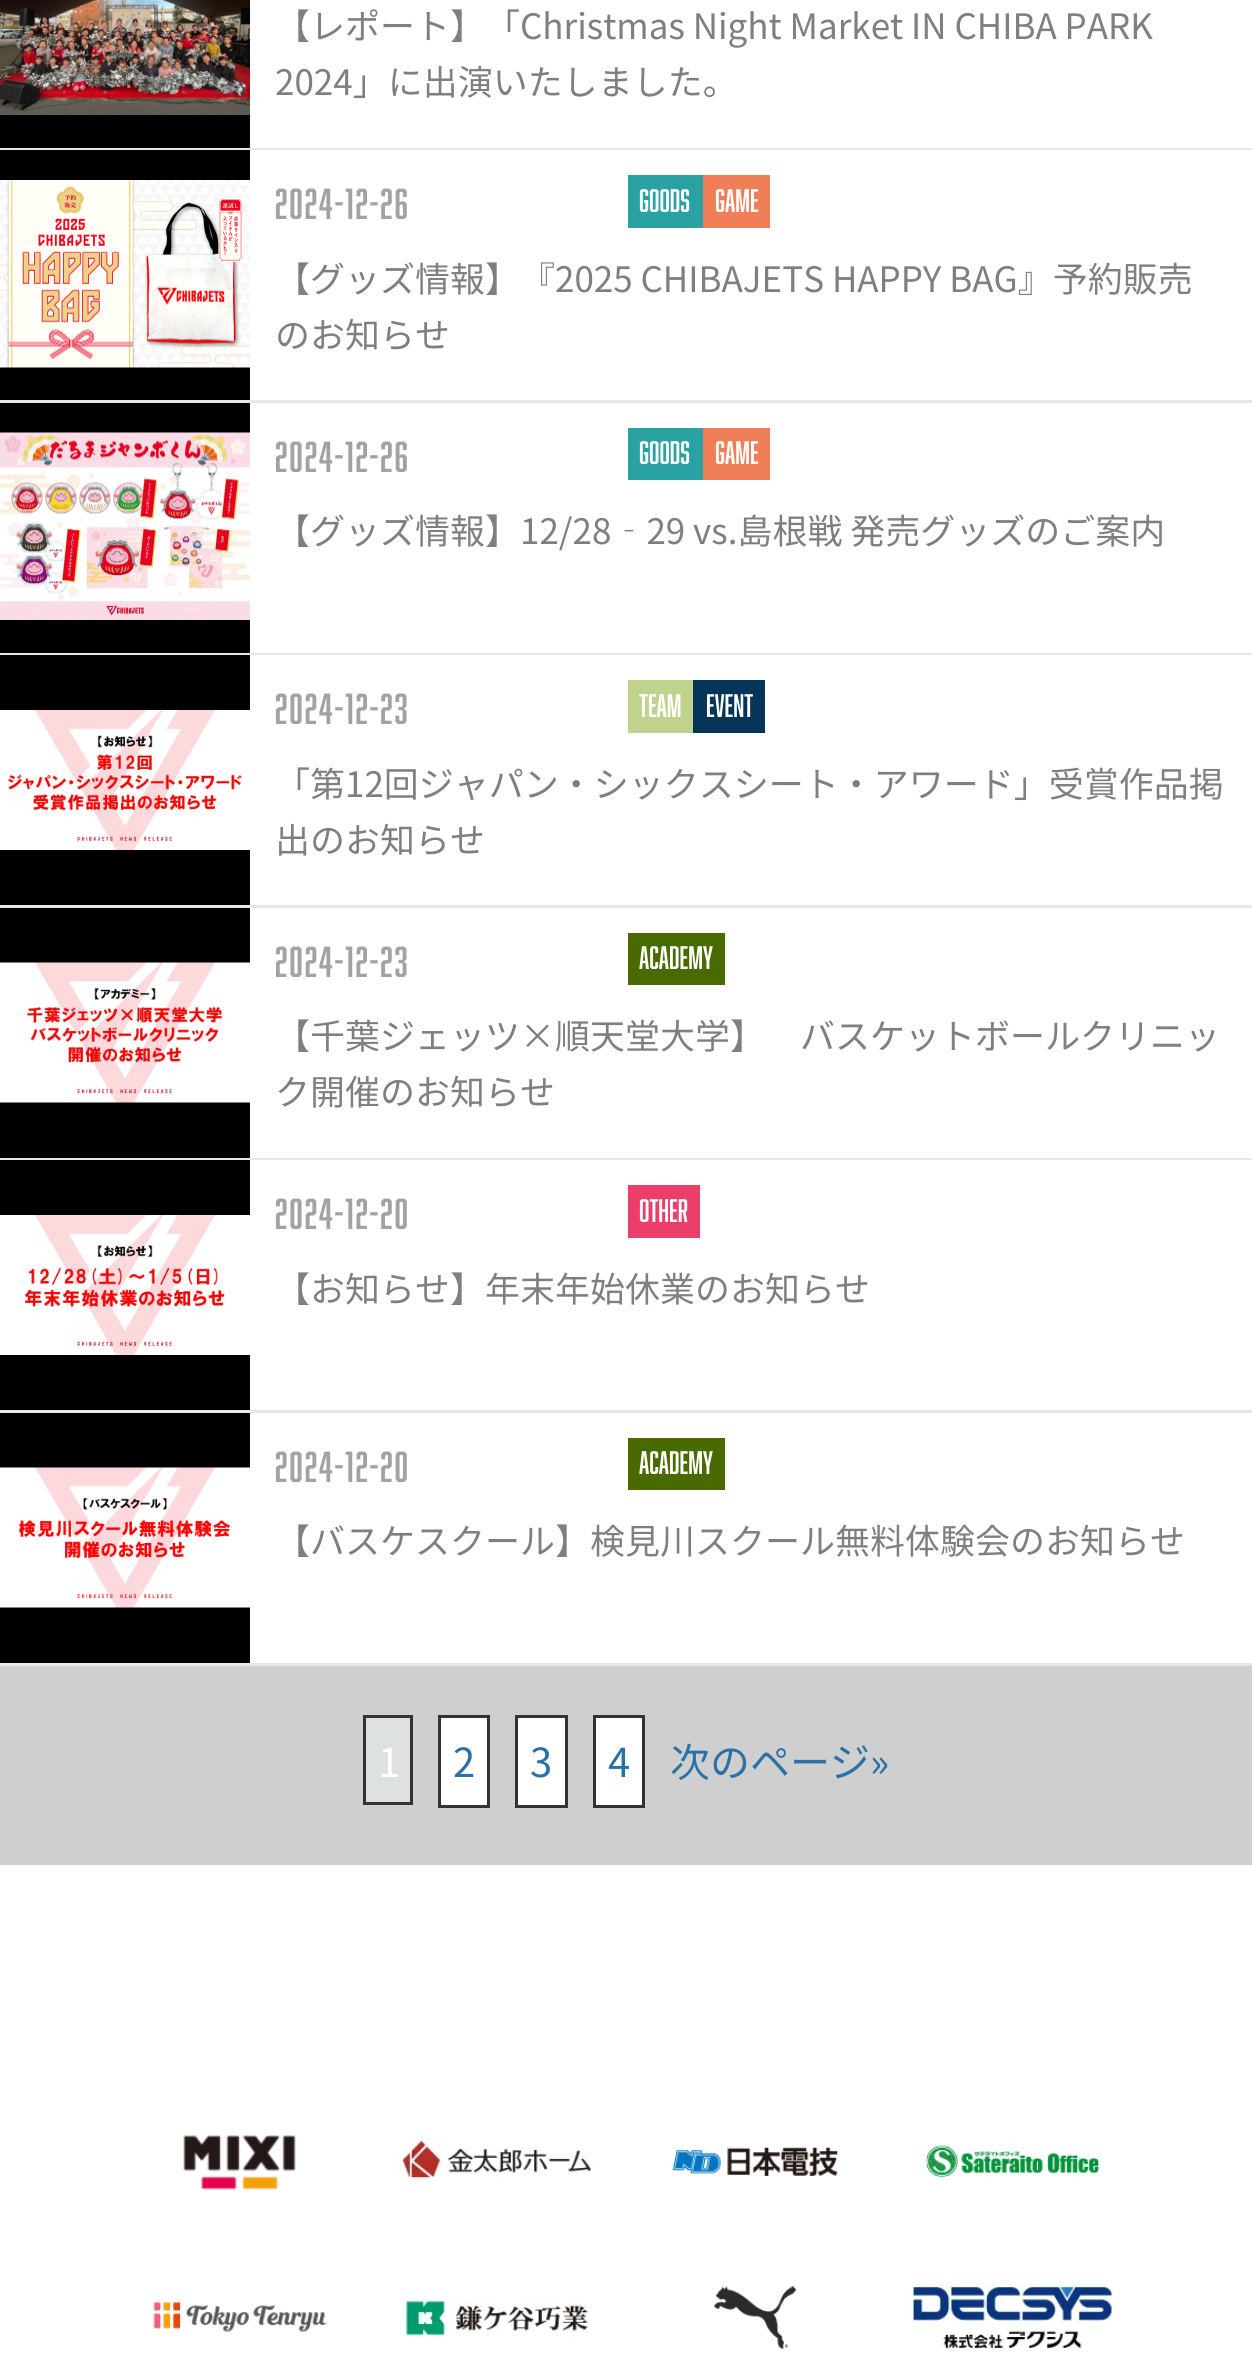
import math
import cairocffi as cairo

surface = cairo.ImageSurface(cairo.FORMAT_RGB24, 1252, 2359)
cr = cairo.Context(surface)
options = cairo.FontOptions()
options.set_hint_metrics(cairo.HINT_METRICS_OFF)
options.set_hint_style(cairo.HINT_STYLE_NONE)
cr.set_font_options(options)
cr.set_miter_limit(4)


def use_color(code):
    cr.set_source_rgb(*(v / 255 for v in bytes.fromhex(code[-6:])))


def spaced_text(x, y, s, letter, word):
    cr.move_to(x, y)
    for ch in s:
        cr.show_text(ch)
        cr.rel_move_to(letter + word * (ch == ' '), 0)


def picture(path, x, y, w, h):
    cr.save()
    cr.set_source_surface(cairo.ImageSurface.create_from_png(path), x, y)
    cr.rectangle(x, y, w, h)
    cr.fill()
    cr.restore()


use_color("#ffffff")
cr.paint()
use_color("#cfcfcf")
cr.rectangle(0, 1666, 1252, 199)
cr.fill()
use_color("#e6e7e7")
cr.rectangle(0, 148, 1252, 2)
cr.fill()
use_color("#000000")
cr.rectangle(0, 115, 250, 33)
cr.fill()
picture("img1.png", 0, 0, 250, 115)
cr.select_font_face("Noto Sans CJK JP")
cr.set_font_size(35)
use_color("#7f7f7f")
cr.move_to(275, 39)
cr.show_text("【レポート】「Christmas Night Market IN CHIBA PARK")
cr.move_to(275, 95)
cr.show_text("2024」に出演いたしました。")
use_color("#e6e7e7")
cr.rectangle(0, 400, 1252, 3)
cr.fill()
use_color("#000000")
cr.rectangle(0, 150, 250, 250)
cr.fill()
picture("img2.png", 0, 180, 250, 188)
cr.select_font_face("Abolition")
cr.set_font_size(40)
use_color("#a2a2a2")
spaced_text(275, 219, "2024-12-26", 2, 0)
cr.select_font_face("Noto Sans CJK JP")
cr.set_font_size(35)
use_color("#7f7f7f")
cr.move_to(275, 292)
cr.show_text("【グッズ情報】『2025 CHIBAJETS HAPPY BAG』予約販売")
cr.move_to(275, 348)
cr.show_text("のお知らせ")
use_color("#2aa2a3")
cr.rectangle(628, 175, 75, 53)
cr.fill()
cr.select_font_face("Abolition")
cr.set_font_size(30)
use_color("#ffffff")
cr.move_to(639, 212)
cr.show_text("GOODS")
use_color("#f07e57")
cr.rectangle(703, 175, 67, 53)
cr.fill()
use_color("#ffffff")
cr.move_to(715, 212)
cr.show_text("GAME")
use_color("#e6e7e7")
cr.rectangle(0, 653, 1252, 2)
cr.fill()
use_color("#000000")
cr.rectangle(0, 403, 250, 250)
cr.fill()
picture("img3.png", 0, 432, 250, 188)
cr.set_font_size(40)
use_color("#a2a2a2")
spaced_text(275, 472, "2024-12-26", 2, 0)
cr.select_font_face("Noto Sans CJK JP")
cr.set_font_size(35)
use_color("#7f7f7f")
cr.move_to(275, 544)
cr.show_text("【グッズ情報】12/28‐29 vs.島根戦 発売グッズのご案内")
use_color("#2aa2a3")
cr.rectangle(628, 428, 75, 52)
cr.fill()
cr.select_font_face("Abolition")
cr.set_font_size(30)
use_color("#ffffff")
cr.move_to(639, 464)
cr.show_text("GOODS")
use_color("#f07e57")
cr.rectangle(703, 428, 67, 52)
cr.fill()
use_color("#ffffff")
cr.move_to(715, 464)
cr.show_text("GAME")
use_color("#e6e7e7")
cr.rectangle(0, 905, 1252, 3)
cr.fill()
use_color("#000000")
cr.rectangle(0, 655, 250, 250)
cr.fill()
picture("img4.png", 0, 710, 250, 140)
cr.set_font_size(40)
use_color("#a2a2a2")
spaced_text(275, 724, "2024-12-23", 2, 0)
cr.select_font_face("Noto Sans CJK JP")
cr.set_font_size(35)
use_color("#7f7f7f")
cr.move_to(275, 797)
cr.show_text("「第12回ジャパン・シックスシート・アワード」受賞作品掲")
cr.move_to(275, 853)
cr.show_text("出のお知らせ")
use_color("#bfd38d")
cr.rectangle(628, 680, 65, 53)
cr.fill()
cr.select_font_face("Abolition")
cr.set_font_size(30)
use_color("#ffffff")
cr.move_to(639, 717)
cr.show_text("TEAM")
use_color("#043457")
cr.rectangle(693, 680, 72, 53)
cr.fill()
use_color("#ffffff")
cr.move_to(706, 717)
cr.show_text("EVENT")
use_color("#e6e7e7")
cr.rectangle(0, 1158, 1252, 2)
cr.fill()
use_color("#000000")
cr.rectangle(0, 908, 250, 250)
cr.fill()
picture("img5.png", 0, 962, 250, 141)
cr.set_font_size(40)
use_color("#a2a2a2")
spaced_text(275, 977, "2024-12-23", 2, 0)
cr.select_font_face("Noto Sans CJK JP")
cr.set_font_size(35)
use_color("#7f7f7f")
cr.move_to(275, 1049)
cr.show_text("【千葉ジェッツ×順天堂大学】")
cr.move_to(800, 1049)
cr.show_text("バスケットボールクリニッ")
cr.move_to(275, 1105)
cr.show_text("ク開催のお知らせ")
use_color("#486a00")
cr.rectangle(628, 933, 97, 52)
cr.fill()
cr.select_font_face("Abolition")
cr.set_font_size(30)
use_color("#ffffff")
cr.move_to(639, 969)
cr.show_text("ACADEMY")
use_color("#e6e7e7")
cr.rectangle(0, 1410, 1252, 3)
cr.fill()
use_color("#000000")
cr.rectangle(0, 1160, 250, 250)
cr.fill()
picture("img6.png", 0, 1215, 250, 140)
cr.set_font_size(40)
use_color("#a2a2a2")
spaced_text(275, 1229, "2024-12-20", 2, 0)
cr.select_font_face("Noto Sans CJK JP")
cr.set_font_size(35)
use_color("#7f7f7f")
cr.move_to(275, 1302)
cr.show_text("【お知らせ】年末年始休業のお知らせ")
use_color("#ec3e6b")
cr.rectangle(628, 1185, 72, 53)
cr.fill()
cr.select_font_face("Abolition")
cr.set_font_size(30)
use_color("#ffffff")
cr.move_to(639, 1222)
cr.show_text("OTHER")
use_color("#e6e7e7")
cr.rectangle(0, 1663, 1252, 3)
cr.fill()
use_color("#000000")
cr.rectangle(0, 1413, 250, 250)
cr.fill()
picture("img7.png", 0, 1467, 250, 141)
cr.set_font_size(40)
use_color("#a2a2a2")
spaced_text(275, 1482, "2024-12-20", 2, 0)
cr.select_font_face("Noto Sans CJK JP")
cr.set_font_size(35)
use_color("#7f7f7f")
cr.move_to(275, 1554)
cr.show_text("【バスケスクール】検見川スクール無料体験会のお知らせ")
use_color("#486a00")
cr.rectangle(628, 1438, 97, 52)
cr.fill()
cr.select_font_face("Abolition")
cr.set_font_size(30)
use_color("#ffffff")
cr.move_to(639, 1474)
cr.show_text("ACADEMY")
use_color("#dee1e1")
cr.rectangle(364.5, 1716.5, 47, 87)
cr.fill_preserve()
use_color("#333333")
cr.set_line_width(3)
cr.stroke()
cr.select_font_face("Noto Sans CJK JP")
cr.set_font_size(40)
use_color("#ffffff")
spaced_text(378, 1777, "1", -2, 0)
cr.rectangle(439.5, 1716.5, 49, 90)
cr.fill_preserve()
use_color("#333333")
cr.stroke()
use_color("#2971a7")
cr.move_to(453, 1777)
cr.show_text("2")
use_color("#ffffff")
cr.rectangle(516.5, 1716.5, 50, 90)
cr.fill_preserve()
use_color("#333333")
cr.stroke()
use_color("#2971a7")
cr.move_to(530, 1777)
cr.show_text("3")
use_color("#ffffff")
cr.rectangle(594.5, 1716.5, 49, 90)
cr.fill_preserve()
use_color("#333333")
cr.stroke()
use_color("#2971a7")
cr.move_to(608, 1777)
cr.show_text("4")
cr.move_to(670, 1777)
cr.show_text("次のページ»")
picture("img8.png", 183, 2135, 113, 55)
picture("img9.png", 397, 2140, 196, 42)
picture("img10.png", 672, 2147, 166, 29)
picture("img11.png", 925, 2145, 175, 33)
picture("img12.png", 153, 2302, 174, 30)
picture("img13.png", 405, 2298, 183, 39)
picture("img14.png", 713, 2286, 84, 63)
picture("img15.png", 912, 2285, 201, 65)
surface.write_to_png("result.png")
